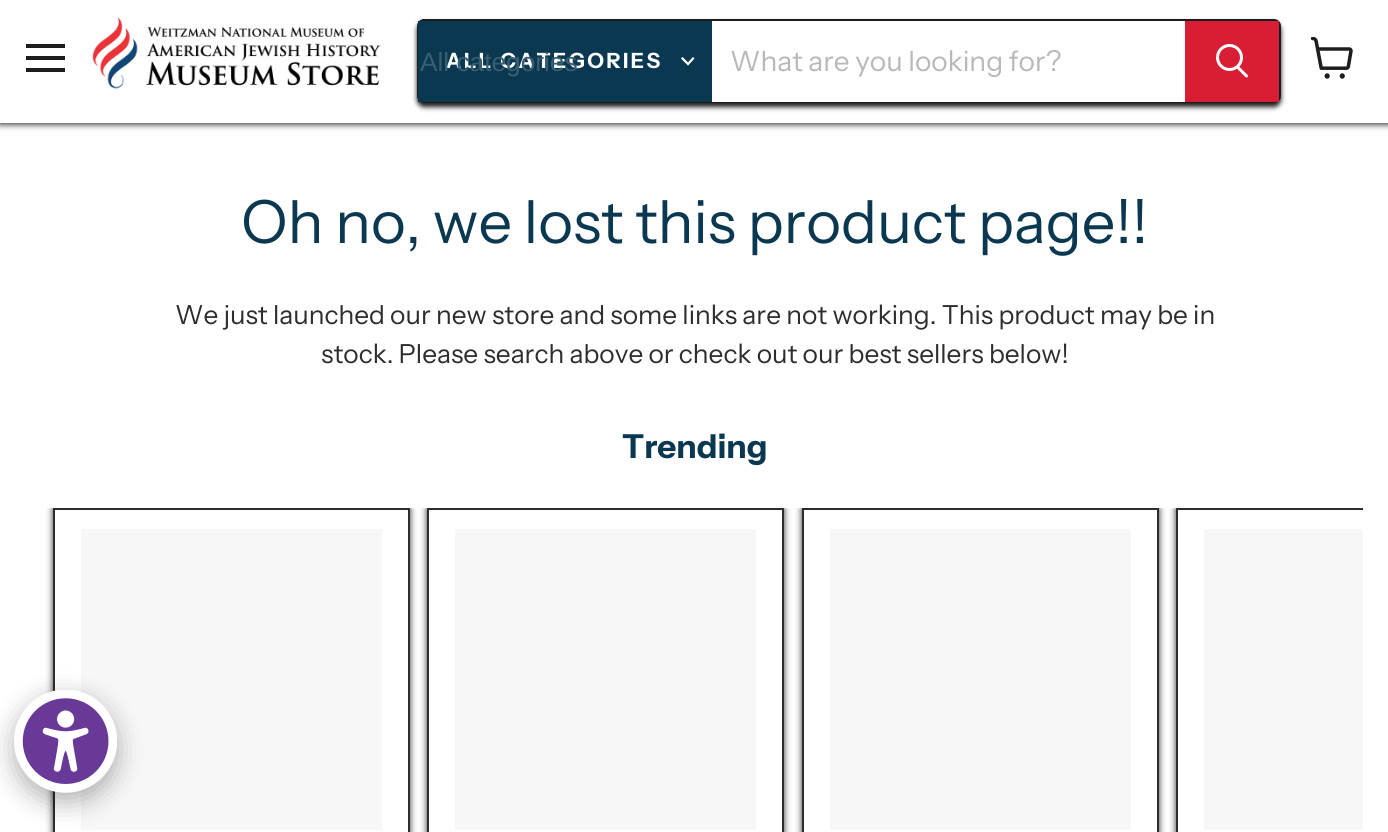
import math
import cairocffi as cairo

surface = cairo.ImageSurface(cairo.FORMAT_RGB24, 1388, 832)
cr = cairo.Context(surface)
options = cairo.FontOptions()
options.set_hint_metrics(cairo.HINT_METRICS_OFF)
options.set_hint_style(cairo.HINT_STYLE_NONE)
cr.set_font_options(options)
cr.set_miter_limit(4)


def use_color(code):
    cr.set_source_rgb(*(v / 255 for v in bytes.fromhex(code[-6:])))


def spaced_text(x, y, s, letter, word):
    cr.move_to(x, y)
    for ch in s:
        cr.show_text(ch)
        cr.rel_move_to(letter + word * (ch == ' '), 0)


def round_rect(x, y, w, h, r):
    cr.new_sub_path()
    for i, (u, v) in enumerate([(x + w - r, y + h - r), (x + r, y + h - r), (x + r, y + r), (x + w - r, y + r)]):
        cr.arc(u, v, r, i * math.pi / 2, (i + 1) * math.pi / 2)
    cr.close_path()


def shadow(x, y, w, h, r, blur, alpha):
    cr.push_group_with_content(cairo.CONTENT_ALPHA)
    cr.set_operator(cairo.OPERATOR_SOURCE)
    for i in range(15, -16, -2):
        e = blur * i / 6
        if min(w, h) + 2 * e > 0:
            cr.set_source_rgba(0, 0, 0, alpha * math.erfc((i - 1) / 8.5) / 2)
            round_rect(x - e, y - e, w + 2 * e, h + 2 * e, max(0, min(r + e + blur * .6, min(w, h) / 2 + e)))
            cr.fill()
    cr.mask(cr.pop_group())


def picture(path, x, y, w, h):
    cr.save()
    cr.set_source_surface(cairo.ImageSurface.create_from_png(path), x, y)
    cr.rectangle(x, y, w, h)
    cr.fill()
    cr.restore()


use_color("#ffffff")
cr.paint()
use_color("#1d1d1d")
shadow(0, 2, 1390, 122, 0, 3.5, 1)
use_color("#ffffff")
cr.rectangle(0, 0, 1388, 123)
cr.fill()
use_color("#1d1d1d")
cr.rectangle(26, 44, 39, 4)
cr.fill()
cr.rectangle(26, 56, 39, 4)
cr.fill()
cr.rectangle(26, 68, 39, 4)
cr.fill()
picture("img1.png", 92, 17, 289, 72)
use_color("#1d1d1d")
shadow(417, 23, 864, 84, 7, 2.5, 1)
round_rect(418, 20, 862, 82, 6)
use_color("#1d1d1d")
cr.stroke()
use_color("#0a3851")
cr.rectangle(418, 21, 294, 81)
cr.fill()
cr.select_font_face("Instrument Sans", cairo.FONT_SLANT_NORMAL, cairo.FONT_WEIGHT_BOLD)
cr.set_font_size(21)
use_color("#ffffff")
spaced_text(446, 68, "ALL CATEGORIES", 2.5, 0)
cr.select_font_face("Liberation Sans")
cr.set_font_size(26.25)
use_color("#385e72")
cr.move_to(420, 71)
cr.show_text("All categories")
cr.new_path()
cr.move_to(688, 64)
cr.line_to(693, 58.5)
cr.move_to(688, 64)
cr.line_to(682.5, 58.5)
use_color("#ffffff")
cr.set_line_width(2.2)
cr.set_line_cap(cairo.LINE_CAP_SQUARE)
cr.stroke()
cr.rectangle(712, 21, 473, 81)
cr.fill()
cr.select_font_face("Instrument Sans")
cr.set_font_size(28)
use_color("#b8b8b8")
cr.move_to(730, 71)
cr.show_text("What are you looking for?")
use_color("#d81d34")
cr.rectangle(1185, 21, 94, 81)
cr.fill()
cr.new_path()
cr.move_to(1246.5, 76)
cr.line_to(1238, 67.5)
use_color("#ffffff")
cr.set_line_width(3)
cr.set_line_cap(cairo.LINE_CAP_ROUND)
cr.stroke()
cr.arc(1229.5, 57.5, 12, 0, 2 * math.pi)
cr.set_line_cap(cairo.LINE_CAP_BUTT)
cr.stroke()
picture("img2.png", 1311, 37, 42, 42)
cr.set_font_size(59.5)
use_color("#0a3851")
cr.move_to(241, 243)
cr.show_text("Oh no, we lost this product page!!")
cr.set_font_size(26.25)
use_color("#2d2d2d")
cr.move_to(175, 324)
cr.show_text("We just launched our new store and some links are not working. This product may be in")
cr.move_to(321, 363)
cr.show_text("stock. Please search above or check out our best sellers below!")
cr.select_font_face("Instrument Sans", cairo.FONT_SLANT_NORMAL, cairo.FONT_WEIGHT_BOLD)
cr.set_font_size(33)
use_color("#0a3851")
cr.move_to(622, 458)
cr.show_text("Trending")
cr.save()
cr.rectangle(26, 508, 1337, 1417)
cr.clip()
use_color("#2d2d2d")
shadow(53, 509, 357, 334, 0, 3.5, 1)
cr.restore()
use_color("#ffffff")
cr.rectangle(54, 509, 355, 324)
cr.fill_preserve()
use_color("#2d2d2d")
cr.set_line_width(2)
cr.stroke()
use_color("#f7f7f7")
cr.rectangle(81, 529, 301, 301)
cr.fill()
cr.save()
cr.rectangle(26, 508, 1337, 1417)
cr.clip()
cr.set_fill_rule(cairo.FILL_RULE_EVEN_ODD)
cr.new_path()
cr.move_to(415, 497)
cr.line_to(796, 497)
cr.line_to(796, 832)
cr.line_to(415, 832)
cr.close_path()
cr.move_to(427, 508)
cr.line_to(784, 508)
cr.line_to(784, 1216)
cr.line_to(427, 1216)
cr.close_path()
cr.clip()
use_color("#2d2d2d")
shadow(427, 509, 357, 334, 0, 3.5, 1)
cr.restore()
cr.rectangle(428, 509, 355, 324)
use_color("#2d2d2d")
cr.stroke()
use_color("#f7f7f7")
cr.rectangle(455, 529, 301, 301)
cr.fill()
cr.save()
cr.rectangle(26, 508, 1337, 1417)
cr.clip()
use_color("#2d2d2d")
shadow(802, 509, 357, 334, 0, 3.5, 1)
cr.restore()
use_color("#ffffff")
cr.rectangle(803, 509, 355, 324)
cr.fill_preserve()
use_color("#2d2d2d")
cr.stroke()
use_color("#f7f7f7")
cr.rectangle(830, 529, 301, 301)
cr.fill()
cr.save()
cr.rectangle(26, 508, 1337, 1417)
cr.clip()
cr.rectangle(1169, 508, 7, 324)
cr.clip()
use_color("#2d2d2d")
shadow(1176, 509, 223, 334, 0, 3.5, 1)
cr.restore()
cr.save()
cr.rectangle(26, 508, 1337, 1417)
cr.clip()
cr.rectangle(1177, 509, 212, 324)
use_color("#2d2d2d")
cr.stroke()
cr.restore()
cr.rectangle(1204, 529, 159, 301)
cr.fill()
use_color("#000000")
shadow(14, 698, 103, 104, 51.5, 13, 0.3)
picture("img3.png", 14, 690, 103, 103)
surface.write_to_png("result.png")
